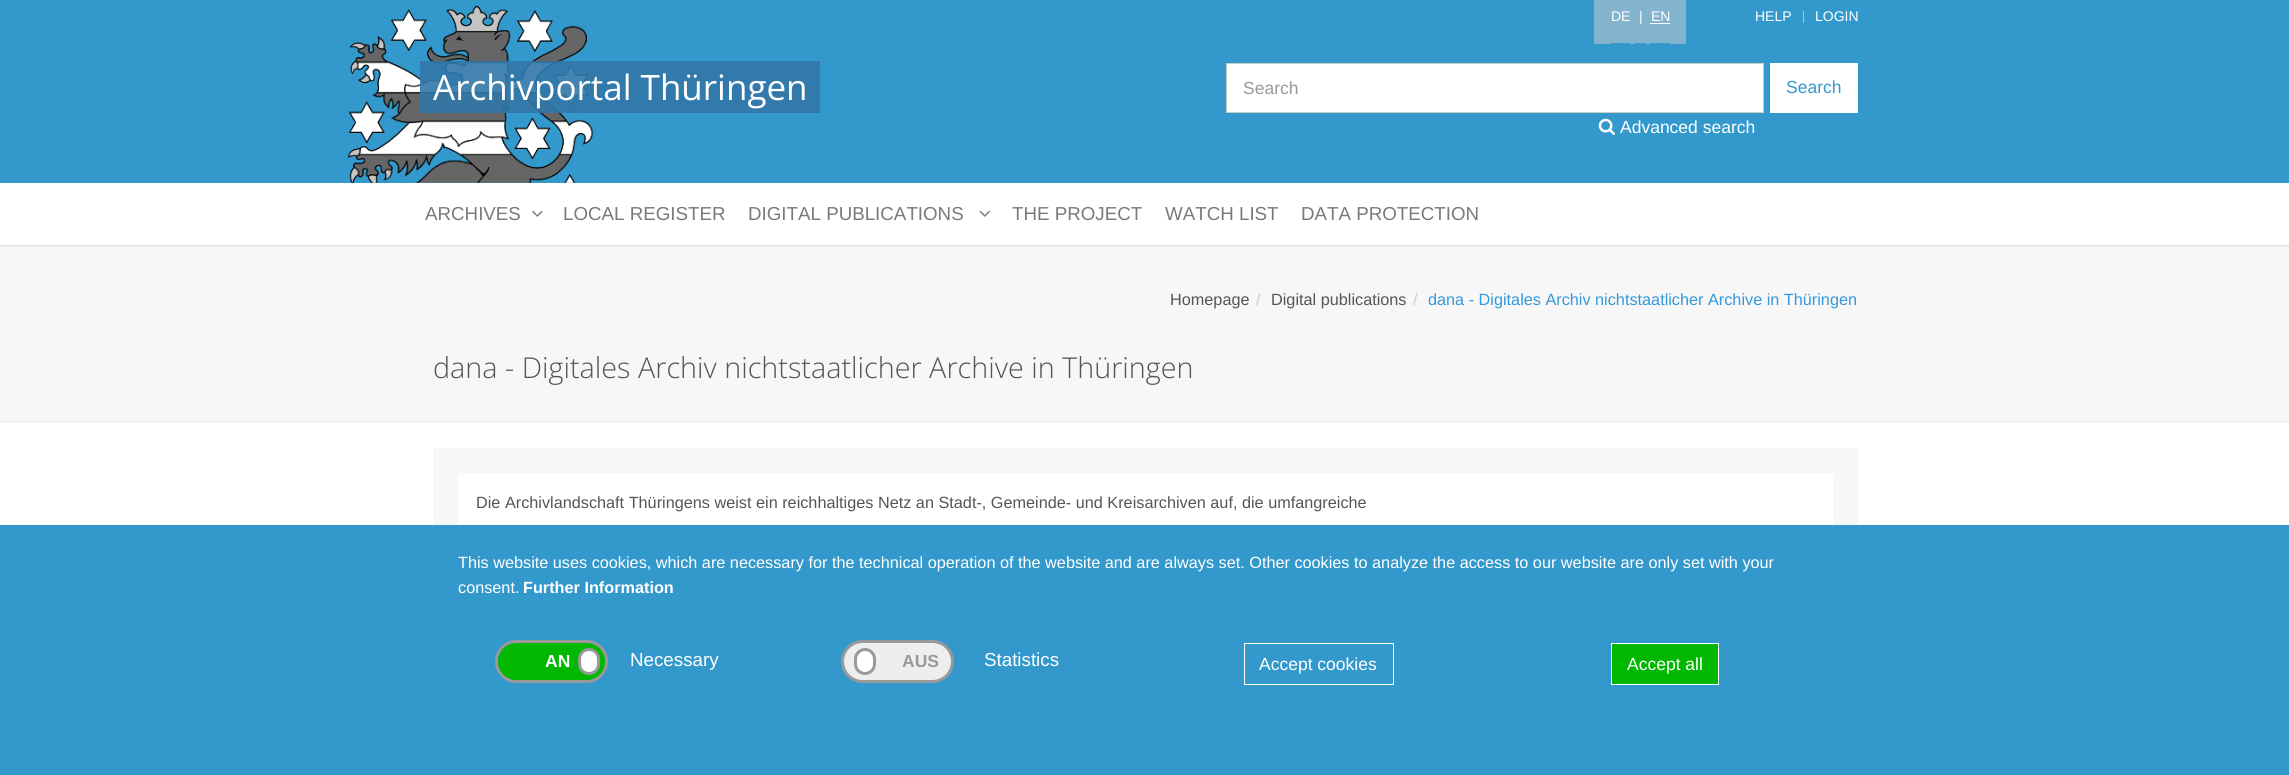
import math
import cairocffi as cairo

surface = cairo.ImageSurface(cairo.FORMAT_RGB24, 2289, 775)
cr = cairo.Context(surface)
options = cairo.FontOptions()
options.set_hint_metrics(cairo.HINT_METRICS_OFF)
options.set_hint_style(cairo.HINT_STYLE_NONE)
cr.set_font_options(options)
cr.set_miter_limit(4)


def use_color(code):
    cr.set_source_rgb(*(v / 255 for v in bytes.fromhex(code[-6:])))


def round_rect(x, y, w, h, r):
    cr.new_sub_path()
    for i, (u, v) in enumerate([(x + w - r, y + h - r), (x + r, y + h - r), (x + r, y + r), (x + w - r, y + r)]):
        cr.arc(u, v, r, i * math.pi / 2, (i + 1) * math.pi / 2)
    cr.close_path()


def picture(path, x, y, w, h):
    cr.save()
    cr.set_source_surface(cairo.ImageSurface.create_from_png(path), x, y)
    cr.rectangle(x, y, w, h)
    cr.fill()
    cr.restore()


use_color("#ffffff")
cr.paint()
use_color("#3399cc")
cr.rectangle(0, 0, 2289, 183)
cr.fill()
use_color("#eeeeee")
cr.rectangle(0, 246, 2289, 1)
cr.fill()
use_color("#82b4ce")
cr.rectangle(1611, 0, 19, 43)
cr.fill()
cr.select_font_face("Liberation Sans")
cr.set_font_size(14)
use_color("#ffffff")
cr.move_to(1611, 21)
cr.show_text("DE")
use_color("#82b4ce")
cr.rectangle(1594, 0, 17, 44)
cr.fill()
cr.rectangle(1630, 0, 5, 44)
cr.fill()
cr.rectangle(1635, 0, 11, 43)
cr.fill()
use_color("#ffffff")
cr.move_to(1639, 21)
cr.show_text("|")
use_color("#82b4ce")
cr.rectangle(1646, 0, 4, 44)
cr.fill()
cr.rectangle(1650, 0, 20, 43)
cr.fill()
use_color("#ffffff")
cr.move_to(1651, 21)
cr.show_text("EN")
use_color("#82b4ce")
cr.rectangle(1670, 0, 16, 44)
cr.fill()
use_color("#ffffff")
cr.rectangle(1650, 23, 20, 1)
cr.fill()
cr.move_to(1755, 21)
cr.show_text("HELP")
use_color("#bbbbbb")
cr.rectangle(1803, 11, 1, 12)
cr.fill()
use_color("#ffffff")
cr.move_to(1815, 21)
cr.show_text("LOGIN")
picture("img1.png", 347, 5, 247, 178)
cr.set_source_rgba(0.192, 0.467, 0.659, 0.9)
cr.rectangle(420, 61, 400, 52)
cr.fill()
cr.select_font_face("Open Sans")
cr.set_font_size(35)
use_color("#ffffff")
cr.move_to(433, 100)
cr.show_text("Archivportal Thüringen")
cr.rectangle(1226.5, 63.5, 537, 49)
cr.fill_preserve()
use_color("#cccccc")
cr.set_line_width(1)
cr.stroke()
cr.select_font_face("Liberation Sans")
cr.set_font_size(17.5)
use_color("#999999")
cr.move_to(1243, 94)
cr.show_text("Search")
use_color("#ffffff")
cr.rectangle(1770, 63, 88, 50)
cr.fill()
use_color("#3399cc")
cr.move_to(1786, 93)
cr.show_text("Search")
picture("img2.png", 1598, 118, 17, 17)
use_color("#ffffff")
cr.move_to(1620, 133)
cr.show_text("Advanced search")
use_color("#dfdfdf")
cr.rectangle(0, 245, 2289, 1)
cr.fill()
cr.set_font_size(18.75)
use_color("#797979")
cr.move_to(425, 220)
cr.show_text("ARCHIVES")
picture("img3.png", 532, 210, 11, 7)
cr.move_to(563, 220)
cr.show_text("LOCAL REGISTER")
cr.move_to(748, 220)
cr.show_text("DIGITAL PUBLICATIONS")
picture("img4.png", 979, 210, 11, 7)
cr.move_to(1012, 220)
cr.show_text("THE PROJECT")
cr.move_to(1165, 220)
cr.show_text("WATCH LIST")
cr.move_to(1301, 220)
cr.show_text("DATA PROTECTION")
use_color("#f7f7f7")
cr.rectangle(0, 247, 2289, 176)
cr.fill()
use_color("#eeeeee")
cr.rectangle(0, 421, 2289, 1)
cr.fill()
cr.set_font_size(16.25)
use_color("#555555")
cr.move_to(1170, 305)
cr.show_text("Homepage")
use_color("#cccccc")
cr.move_to(1256, 305)
cr.show_text("/")
use_color("#555555")
cr.move_to(1271, 305)
cr.show_text("Digital publications")
use_color("#cccccc")
cr.move_to(1413, 305)
cr.show_text("/")
use_color("#3498db")
cr.move_to(1428, 305)
cr.show_text("dana - Digitales Archiv nichtstaatlicher Archive in Thüringen")
cr.select_font_face("Open Sans Light")
cr.set_font_size(28.75)
use_color("#555555")
cr.move_to(433, 378)
cr.show_text("dana - Digitales Archiv nichtstaatlicher Archive in Thüringen")
use_color("#f7f7f7")
cr.rectangle(433, 448, 1425, 77)
cr.fill()
use_color("#ffffff")
cr.rectangle(458, 473, 1375, 52)
cr.fill()
cr.select_font_face("Liberation Sans")
cr.set_font_size(16.25)
use_color("#555555")
cr.move_to(476, 508)
cr.show_text("Die Archivlandschaft Thüringens weist ein reichhaltiges Netz an Stadt-, Gemeinde- und Kreisarchiven auf, die umfangreiche")
use_color("#3399cc")
cr.rectangle(0, 525, 2289, 250)
cr.fill()
use_color("#ffffff")
cr.move_to(458, 568)
cr.show_text("This website uses cookies, which are necessary for the technical operation of the website and are always set. Other cookies to analyze the access to our website are only set with your")
cr.move_to(458, 593)
cr.show_text("consent.")
cr.select_font_face("Liberation Sans", cairo.FONT_SLANT_NORMAL, cairo.FONT_WEIGHT_BOLD)
cr.move_to(523, 593)
cr.show_text("Further Information")
round_rect(496.5, 641.5, 110, 40, 20)
use_color("#999999")
cr.set_line_width(3)
cr.stroke()
use_color("#00b800")
round_rect(498, 643, 107, 37, 18.5)
cr.fill()
cr.set_font_size(17.5)
use_color("#ffffff")
cr.move_to(545, 667)
cr.show_text("AN")
round_rect(579.5, 649.5, 19, 24, 9.5)
cr.fill_preserve()
use_color("#999999")
cr.stroke()
cr.select_font_face("Liberation Sans")
cr.set_font_size(18.75)
use_color("#ffffff")
cr.move_to(630, 666)
cr.show_text("Necessary")
round_rect(842.5, 641.5, 110, 40, 20)
use_color("#999999")
cr.stroke()
use_color("#eeeeee")
round_rect(844, 643, 107, 37, 18.5)
cr.fill()
use_color("#ffffff")
round_rect(855.5, 649.5, 19, 24, 9.5)
cr.fill_preserve()
use_color("#999999")
cr.stroke()
cr.select_font_face("Liberation Sans", cairo.FONT_SLANT_NORMAL, cairo.FONT_WEIGHT_BOLD)
cr.set_font_size(17.5)
cr.move_to(902, 667)
cr.show_text("AUS")
cr.select_font_face("Liberation Sans")
cr.set_font_size(18.75)
use_color("#ffffff")
cr.move_to(984, 666)
cr.show_text("Statistics")
cr.rectangle(1244.5, 643.5, 149, 41)
cr.set_line_width(1)
cr.stroke()
cr.set_font_size(17.5)
cr.move_to(1259, 670)
cr.show_text("Accept cookies")
use_color("#00b800")
cr.rectangle(1611.5, 643.5, 107, 41)
cr.fill_preserve()
use_color("#ffffff")
cr.stroke()
cr.move_to(1627, 670)
cr.show_text("Accept all")
surface.write_to_png("result.png")
